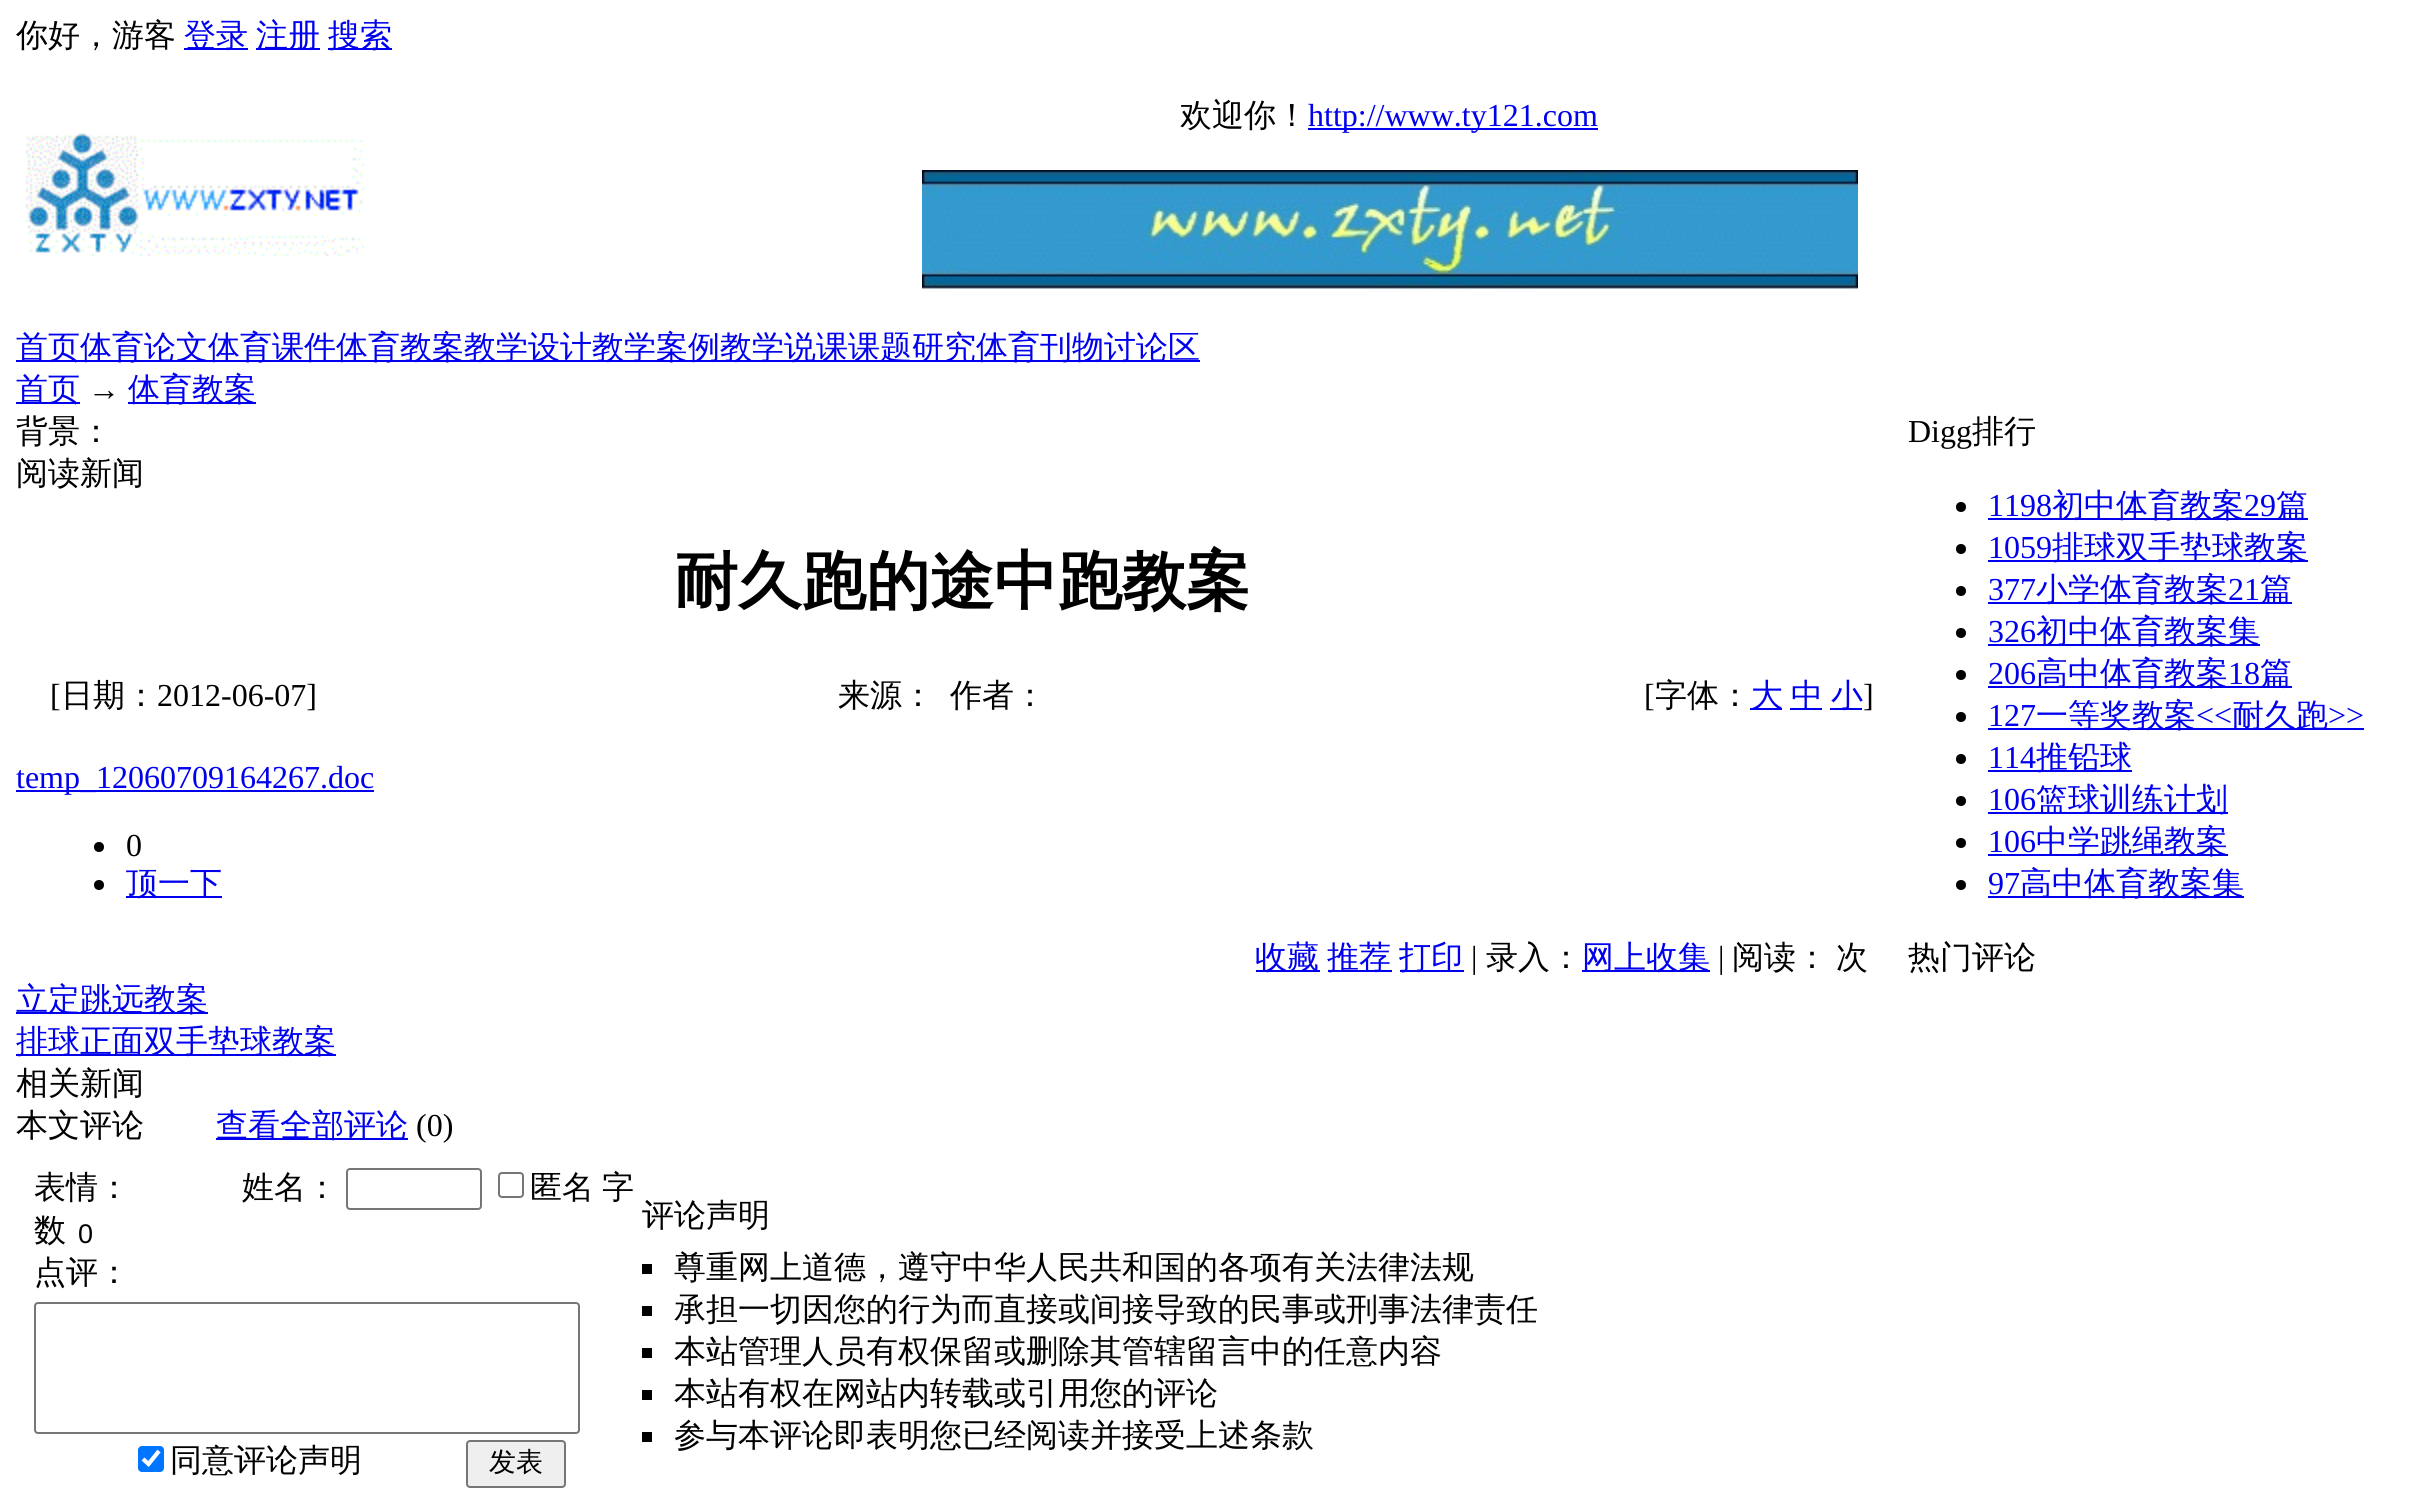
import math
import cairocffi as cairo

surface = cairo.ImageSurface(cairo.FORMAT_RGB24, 2423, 1492)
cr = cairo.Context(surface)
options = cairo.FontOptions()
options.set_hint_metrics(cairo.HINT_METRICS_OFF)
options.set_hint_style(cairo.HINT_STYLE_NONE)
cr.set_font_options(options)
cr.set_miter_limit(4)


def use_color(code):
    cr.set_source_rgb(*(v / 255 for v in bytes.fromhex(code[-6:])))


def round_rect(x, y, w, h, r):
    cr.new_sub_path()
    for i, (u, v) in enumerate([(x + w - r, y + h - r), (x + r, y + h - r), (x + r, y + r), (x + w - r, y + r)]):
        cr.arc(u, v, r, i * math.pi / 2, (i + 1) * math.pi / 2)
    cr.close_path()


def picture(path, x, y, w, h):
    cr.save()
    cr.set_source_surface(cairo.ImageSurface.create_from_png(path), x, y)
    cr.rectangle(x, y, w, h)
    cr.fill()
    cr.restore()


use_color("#ffffff")
cr.paint()
cr.select_font_face("WenQuanYi Zen Hei Medium")
cr.set_font_size(32)
use_color("#000000")
cr.move_to(16, 46)
cr.show_text("你好，游客")
use_color("#0000ee")
cr.rectangle(184, 48, 64, 2)
cr.fill()
cr.move_to(184, 46)
cr.show_text("登录")
cr.rectangle(256, 48, 64, 2)
cr.fill()
cr.move_to(256, 46)
cr.show_text("注册")
cr.rectangle(328, 48, 64, 2)
cr.fill()
cr.move_to(328, 46)
cr.show_text("搜索")
use_color("#000000")
cr.move_to(1180, 126)
cr.show_text("欢迎你！")
use_color("#0000ee")
cr.rectangle(1308, 128, 290, 2)
cr.fill()
cr.select_font_face("Liberation Serif")
cr.move_to(1308, 126)
cr.show_text("http://www.ty121.com")
picture("img1.png", 922, 170, 936, 120)
picture("img2.png", 25, 133, 340, 123)
cr.rectangle(16, 360, 1184, 2)
cr.fill()
cr.select_font_face("WenQuanYi Zen Hei Medium")
cr.move_to(16, 358)
cr.show_text("首页体育论文体育课件体育教案教学设计教学案例教学说课课题研究体育刊物讨论区")
cr.rectangle(16, 402, 64, 2)
cr.fill()
cr.move_to(16, 400)
cr.show_text("首页")
cr.select_font_face("Liberation Serif")
use_color("#000000")
cr.move_to(88, 400)
cr.show_text("→")
use_color("#0000ee")
cr.rectangle(128, 402, 128, 2)
cr.fill()
cr.select_font_face("WenQuanYi Zen Hei Medium")
cr.move_to(128, 400)
cr.show_text("体育教案")
use_color("#000000")
cr.move_to(16, 442)
cr.show_text("背景：")
cr.move_to(16, 484)
cr.show_text("阅读新闻")
cr.select_font_face("WenQuanYi Zen Hei", cairo.FONT_SLANT_NORMAL, cairo.FONT_WEIGHT_BOLD)
cr.set_font_size(64)
cr.move_to(674, 603)
cr.show_text("耐久跑的途中跑教案")
cr.select_font_face("Liberation Serif")
cr.set_font_size(32)
cr.move_to(50, 706)
cr.show_text("[")
cr.select_font_face("WenQuanYi Zen Hei Medium")
cr.move_to(61, 706)
cr.show_text("日期：")
cr.select_font_face("Liberation Serif")
cr.move_to(157, 706)
cr.show_text("2012-06-07]")
cr.select_font_face("WenQuanYi Zen Hei Medium")
cr.move_to(838, 706)
cr.show_text("来源：")
cr.move_to(950, 706)
cr.show_text("作者：")
cr.select_font_face("Liberation Serif")
cr.move_to(1644, 706)
cr.show_text("[")
cr.select_font_face("WenQuanYi Zen Hei Medium")
cr.move_to(1655, 706)
cr.show_text("字体：")
use_color("#0000ee")
cr.rectangle(1750, 708, 32, 2)
cr.fill()
cr.move_to(1751, 706)
cr.show_text("大")
cr.rectangle(1790, 708, 32, 2)
cr.fill()
cr.move_to(1791, 706)
cr.show_text("中")
cr.rectangle(1830, 708, 32, 2)
cr.fill()
cr.move_to(1831, 706)
cr.show_text("小")
cr.select_font_face("Liberation Serif")
use_color("#000000")
cr.move_to(1863, 706)
cr.show_text("]")
use_color("#0000ee")
cr.rectangle(16, 790, 358, 2)
cr.fill()
cr.move_to(16, 788)
cr.show_text("temp_12060709164267.doc")
use_color("#000000")
cr.new_path()
cr.arc(99, 847, 5, 0, 2 * math.pi)
cr.fill()
cr.move_to(126, 856)
cr.show_text("0")
cr.new_path()
cr.arc(99, 885, 5, 0, 2 * math.pi)
cr.fill()
use_color("#0000ee")
cr.rectangle(126, 896, 96, 2)
cr.fill()
cr.select_font_face("WenQuanYi Zen Hei Medium")
cr.move_to(126, 894)
cr.show_text("顶一下")
cr.rectangle(1256, 970, 64, 2)
cr.fill()
cr.move_to(1255, 968)
cr.show_text("收藏")
cr.rectangle(1328, 970, 64, 2)
cr.fill()
cr.move_to(1327, 968)
cr.show_text("推荐")
cr.rectangle(1400, 970, 64, 2)
cr.fill()
cr.move_to(1399, 968)
cr.show_text("打印")
cr.select_font_face("Liberation Serif")
use_color("#000000")
cr.move_to(1471, 968)
cr.show_text("|")
cr.select_font_face("WenQuanYi Zen Hei Medium")
cr.move_to(1486, 968)
cr.show_text("录入：")
use_color("#0000ee")
cr.rectangle(1582, 970, 128, 2)
cr.fill()
cr.move_to(1582, 968)
cr.show_text("网上收集")
cr.select_font_face("Liberation Serif")
use_color("#000000")
cr.move_to(1718, 968)
cr.show_text("|")
cr.select_font_face("WenQuanYi Zen Hei Medium")
cr.move_to(1732, 968)
cr.show_text("阅读：")
cr.move_to(1836, 968)
cr.show_text("次")
use_color("#0000ee")
cr.rectangle(16, 1012, 192, 2)
cr.fill()
cr.move_to(16, 1010)
cr.show_text("立定跳远教案")
cr.rectangle(16, 1054, 320, 2)
cr.fill()
cr.move_to(16, 1052)
cr.show_text("排球正面双手垫球教案")
use_color("#000000")
cr.move_to(16, 1094)
cr.show_text("相关新闻")
cr.move_to(16, 1136)
cr.show_text("本文评论")
use_color("#0000ee")
cr.rectangle(216, 1138, 192, 2)
cr.fill()
cr.move_to(216, 1136)
cr.show_text("查看全部评论")
cr.select_font_face("Liberation Serif")
use_color("#000000")
cr.move_to(416, 1136)
cr.show_text("(0)")
cr.select_font_face("WenQuanYi Zen Hei Medium")
cr.move_to(34, 1198)
cr.show_text("表情：")
cr.move_to(242, 1198)
cr.show_text("姓名：")
round_rect(347, 1169, 134, 40, 3)
use_color("#767676")
cr.stroke()
round_rect(499, 1173, 24, 24, 3)
cr.stroke()
use_color("#000000")
cr.move_to(530, 1198)
cr.show_text("匿名")
cr.move_to(602, 1198)
cr.show_text("字")
cr.move_to(34, 1241)
cr.show_text("数")
cr.select_font_face("Liberation Sans")
cr.set_font_size(27)
cr.move_to(78, 1243)
cr.show_text("0")
cr.select_font_face("WenQuanYi Zen Hei Medium")
cr.set_font_size(32)
cr.move_to(34, 1283)
cr.show_text("点评：")
round_rect(35, 1303, 544, 130, 3)
use_color("#767676")
cr.stroke()
use_color("#0075ff")
round_rect(138, 1446, 26, 26, 4)
cr.fill()
cr.new_path()
cr.move_to(143, 1459)
cr.line_to(148.5, 1464)
cr.line_to(159, 1451)
use_color("#ffffff")
cr.set_line_width(4.2)
cr.stroke()
use_color("#000000")
cr.move_to(170, 1471)
cr.show_text("同意评论声明")
use_color("#efefef")
round_rect(467, 1441, 98, 46, 3)
cr.fill_preserve()
use_color("#767676")
cr.set_line_width(2)
cr.stroke()
cr.set_font_size(27)
use_color("#000000")
cr.move_to(489, 1471)
cr.show_text("发表")
cr.set_font_size(32)
cr.move_to(642, 1226)
cr.show_text("评论声明")
cr.rectangle(642, 1264, 10, 10)
cr.fill()
cr.move_to(674, 1278)
cr.show_text("尊重网上道德，遵守中华人民共和国的各项有关法律法规")
cr.rectangle(642, 1306, 10, 10)
cr.fill()
cr.move_to(674, 1320)
cr.show_text("承担一切因您的行为而直接或间接导致的民事或刑事法律责任")
cr.rectangle(642, 1348, 10, 10)
cr.fill()
cr.move_to(674, 1362)
cr.show_text("本站管理人员有权保留或删除其管辖留言中的任意内容")
cr.rectangle(642, 1390, 10, 10)
cr.fill()
cr.move_to(674, 1404)
cr.show_text("本站有权在网站内转载或引用您的评论")
cr.rectangle(642, 1432, 10, 10)
cr.fill()
cr.move_to(674, 1446)
cr.show_text("参与本评论即表明您已经阅读并接受上述条款")
cr.select_font_face("Liberation Serif")
cr.move_to(1908, 442)
cr.show_text("Digg")
cr.select_font_face("WenQuanYi Zen Hei Medium")
cr.move_to(1972, 442)
cr.show_text("排行")
cr.new_path()
cr.arc(1961, 507, 5, 0, 2 * math.pi)
cr.fill()
cr.select_font_face("Liberation Serif")
use_color("#0000ee")
cr.move_to(1988, 516)
cr.show_text("1198")
cr.rectangle(1988, 518, 320, 2)
cr.fill()
cr.select_font_face("WenQuanYi Zen Hei Medium")
cr.move_to(2052, 516)
cr.show_text("初中体育教案")
cr.select_font_face("Liberation Serif")
cr.move_to(2244, 516)
cr.show_text("29")
cr.select_font_face("WenQuanYi Zen Hei Medium")
cr.move_to(2276, 516)
cr.show_text("篇")
use_color("#000000")
cr.new_path()
cr.arc(1961, 549, 5, 0, 2 * math.pi)
cr.fill()
cr.select_font_face("Liberation Serif")
use_color("#0000ee")
cr.move_to(1988, 558)
cr.show_text("1059")
cr.rectangle(1988, 560, 320, 2)
cr.fill()
cr.select_font_face("WenQuanYi Zen Hei Medium")
cr.move_to(2052, 558)
cr.show_text("排球双手垫球教案")
use_color("#000000")
cr.new_path()
cr.arc(1961, 591, 5, 0, 2 * math.pi)
cr.fill()
cr.select_font_face("Liberation Serif")
use_color("#0000ee")
cr.move_to(1988, 600)
cr.show_text("377")
cr.rectangle(1988, 602, 304, 2)
cr.fill()
cr.select_font_face("WenQuanYi Zen Hei Medium")
cr.move_to(2036, 600)
cr.show_text("小学体育教案")
cr.select_font_face("Liberation Serif")
cr.move_to(2228, 600)
cr.show_text("21")
cr.select_font_face("WenQuanYi Zen Hei Medium")
cr.move_to(2260, 600)
cr.show_text("篇")
use_color("#000000")
cr.new_path()
cr.arc(1961, 633, 5, 0, 2 * math.pi)
cr.fill()
cr.select_font_face("Liberation Serif")
use_color("#0000ee")
cr.move_to(1988, 642)
cr.show_text("326")
cr.rectangle(1988, 644, 272, 2)
cr.fill()
cr.select_font_face("WenQuanYi Zen Hei Medium")
cr.move_to(2036, 642)
cr.show_text("初中体育教案集")
use_color("#000000")
cr.new_path()
cr.arc(1961, 675, 5, 0, 2 * math.pi)
cr.fill()
cr.select_font_face("Liberation Serif")
use_color("#0000ee")
cr.move_to(1988, 684)
cr.show_text("206")
cr.rectangle(1988, 686, 304, 2)
cr.fill()
cr.select_font_face("WenQuanYi Zen Hei Medium")
cr.move_to(2036, 684)
cr.show_text("高中体育教案")
cr.select_font_face("Liberation Serif")
cr.move_to(2228, 684)
cr.show_text("18")
cr.select_font_face("WenQuanYi Zen Hei Medium")
cr.move_to(2260, 684)
cr.show_text("篇")
use_color("#000000")
cr.new_path()
cr.arc(1961, 717, 5, 0, 2 * math.pi)
cr.fill()
cr.select_font_face("Liberation Serif")
use_color("#0000ee")
cr.move_to(1988, 726)
cr.show_text("127")
cr.rectangle(1988, 728, 376, 2)
cr.fill()
cr.select_font_face("WenQuanYi Zen Hei Medium")
cr.move_to(2036, 726)
cr.show_text("一等奖教案")
cr.select_font_face("Liberation Serif")
cr.move_to(2196, 726)
cr.show_text("<<")
cr.select_font_face("WenQuanYi Zen Hei Medium")
cr.move_to(2232, 726)
cr.show_text("耐久跑")
cr.select_font_face("Liberation Serif")
cr.move_to(2328, 726)
cr.show_text(">>")
use_color("#000000")
cr.new_path()
cr.arc(1961, 759, 5, 0, 2 * math.pi)
cr.fill()
use_color("#0000ee")
cr.move_to(1988, 768)
cr.show_text("114")
cr.rectangle(1988, 770, 144, 2)
cr.fill()
cr.select_font_face("WenQuanYi Zen Hei Medium")
cr.move_to(2036, 768)
cr.show_text("推铅球")
use_color("#000000")
cr.new_path()
cr.arc(1961, 801, 5, 0, 2 * math.pi)
cr.fill()
cr.select_font_face("Liberation Serif")
use_color("#0000ee")
cr.move_to(1988, 810)
cr.show_text("106")
cr.rectangle(1988, 812, 240, 2)
cr.fill()
cr.select_font_face("WenQuanYi Zen Hei Medium")
cr.move_to(2036, 810)
cr.show_text("篮球训练计划")
use_color("#000000")
cr.new_path()
cr.arc(1961, 843, 5, 0, 2 * math.pi)
cr.fill()
cr.select_font_face("Liberation Serif")
use_color("#0000ee")
cr.move_to(1988, 852)
cr.show_text("106")
cr.rectangle(1988, 854, 240, 2)
cr.fill()
cr.select_font_face("WenQuanYi Zen Hei Medium")
cr.move_to(2036, 852)
cr.show_text("中学跳绳教案")
use_color("#000000")
cr.new_path()
cr.arc(1961, 885, 5, 0, 2 * math.pi)
cr.fill()
cr.select_font_face("Liberation Serif")
use_color("#0000ee")
cr.move_to(1988, 894)
cr.show_text("97")
cr.rectangle(1988, 896, 256, 2)
cr.fill()
cr.select_font_face("WenQuanYi Zen Hei Medium")
cr.move_to(2020, 894)
cr.show_text("高中体育教案集")
use_color("#000000")
cr.move_to(1908, 968)
cr.show_text("热门评论")
surface.write_to_png("result.png")
